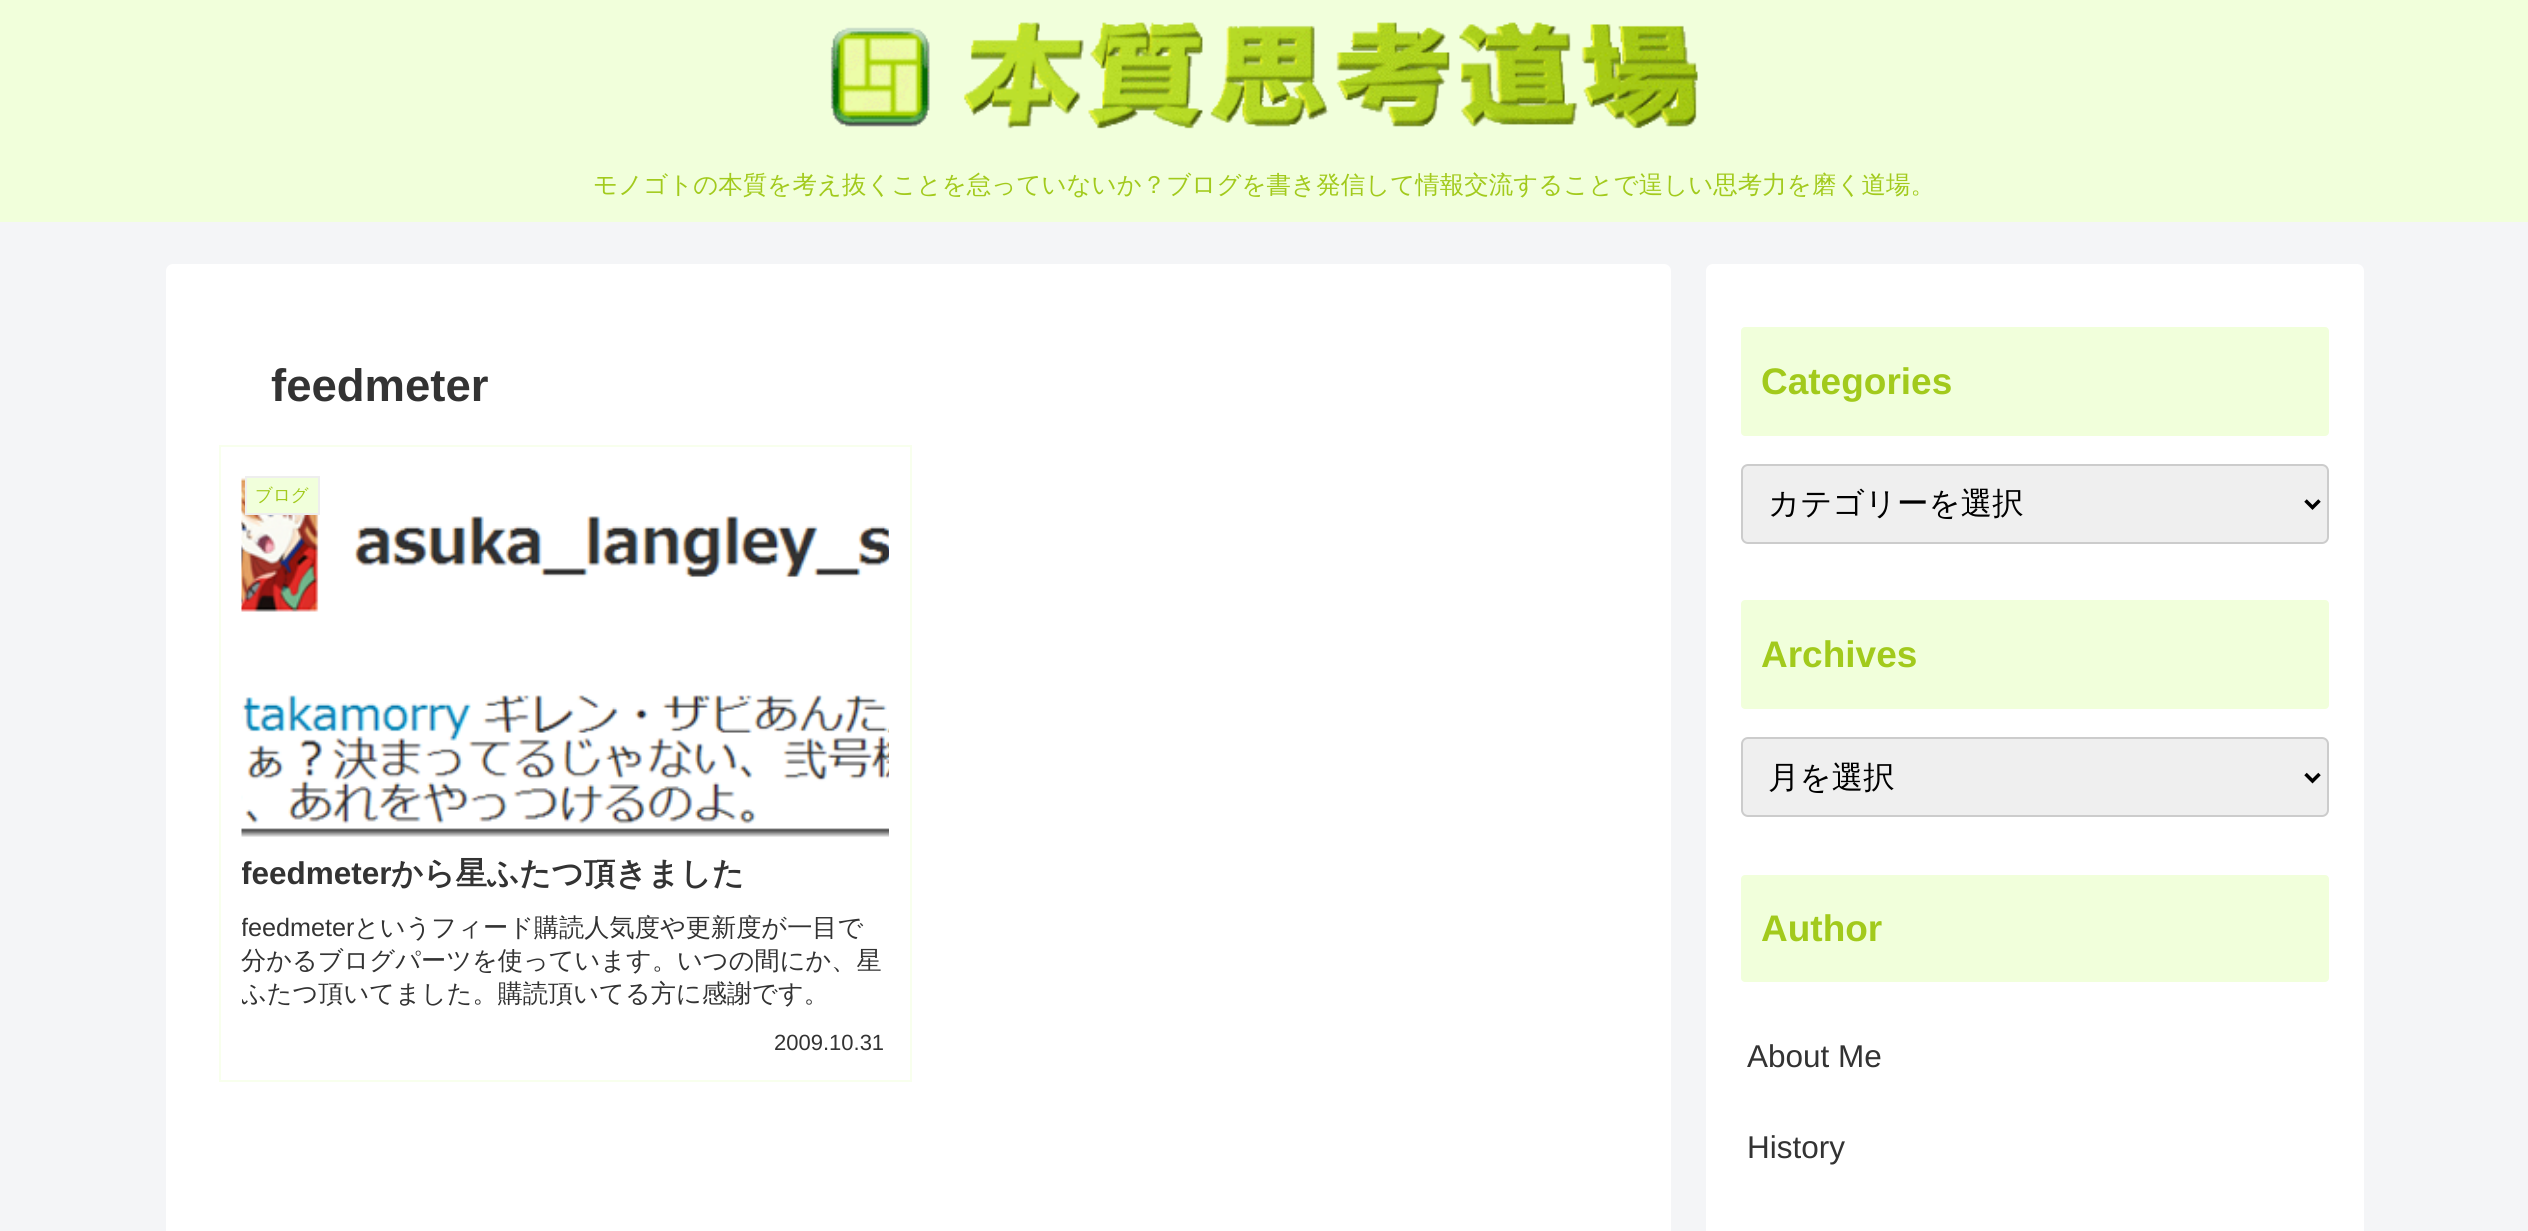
import math
import cairocffi as cairo

surface = cairo.ImageSurface(cairo.FORMAT_RGB24, 2528, 1231)
cr = cairo.Context(surface)
options = cairo.FontOptions()
options.set_hint_metrics(cairo.HINT_METRICS_OFF)
options.set_hint_style(cairo.HINT_STYLE_NONE)
cr.set_font_options(options)
cr.set_miter_limit(4)


def use_color(code):
    cr.set_source_rgb(*(v / 255 for v in bytes.fromhex(code[-6:])))


def round_rect(x, y, w, h, r):
    cr.new_sub_path()
    for i, (u, v) in enumerate([(x + w - r, y + h - r), (x + r, y + h - r), (x + r, y + r), (x + w - r, y + r)]):
        cr.arc(u, v, r, i * math.pi / 2, (i + 1) * math.pi / 2)
    cr.close_path()


def picture(path, x, y, w, h):
    cr.save()
    cr.set_source_surface(cairo.ImageSurface.create_from_png(path), x, y)
    cr.rectangle(x, y, w, h)
    cr.fill()
    cr.restore()


use_color("#f4f5f7")
cr.paint()
use_color("#f1ffdb")
cr.rectangle(0, 0, 2528, 222)
cr.fill()
picture("img1.png", 830, 22, 868, 107)
cr.select_font_face("WenQuanYi Zen Hei Medium")
cr.set_font_size(24.5)
use_color("#a2ca1c")
cr.move_to(593, 193)
cr.show_text("モノゴトの本質を考え抜くことを怠っていないか？ブログを書き発信して情報交流することで逞しい思考力を磨く道場。")
use_color("#ffffff")
round_rect(166, 264, 1505, 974, 7)
cr.fill()
cr.select_font_face("Liberation Sans", cairo.FONT_SLANT_NORMAL, cairo.FONT_WEIGHT_BOLD)
cr.set_font_size(45.5)
use_color("#333333")
cr.move_to(271, 401)
cr.show_text("feedmeter")
cr.rectangle(220, 446, 691, 635)
use_color("#f8ffed")
cr.stroke()
picture("img2.png", 241, 477, 648, 360)
use_color("#f1ffdb")
cr.rectangle(246, 477, 73, 37)
cr.fill_preserve()
use_color("#eeeeee")
cr.stroke()
cr.select_font_face("WenQuanYi Zen Hei Medium")
cr.set_font_size(17.5)
use_color("#a2ca1c")
cr.move_to(255, 501)
cr.show_text("ブログ")
cr.save()
cr.rectangle(242, 849, 647, 51)
cr.clip()
cr.select_font_face("Liberation Sans", cairo.FONT_SLANT_NORMAL, cairo.FONT_WEIGHT_BOLD)
cr.set_font_size(31.5)
use_color("#333333")
cr.move_to(241, 884)
cr.show_text("feedmeter")
cr.restore()
cr.select_font_face("WenQuanYi Zen Hei", cairo.FONT_SLANT_NORMAL, cairo.FONT_WEIGHT_BOLD)
cr.set_font_size(31.5)
use_color("#333333")
cr.move_to(391, 884)
cr.show_text("から星ふたつ頂きました")
cr.save()
cr.rectangle(242, 912, 647, 98)
cr.clip()
cr.select_font_face("Liberation Sans")
cr.set_font_size(25.2)
cr.move_to(241, 936)
cr.show_text("feedmeter")
cr.restore()
cr.select_font_face("WenQuanYi Zen Hei Medium")
cr.set_font_size(25.2)
cr.move_to(354, 936)
cr.show_text("というフィード購読人気度や更新度が一目で")
cr.move_to(241, 969)
cr.show_text("分かるブログパーツを使っています。いつの間にか、星")
cr.save()
cr.rectangle(242, 912, 647, 98)
cr.clip()
cr.move_to(241, 1002)
cr.show_text("ふたつ頂いてました。購読頂いてる方に感謝です。")
cr.restore()
cr.select_font_face("Liberation Sans")
cr.set_font_size(22)
cr.move_to(774, 1050)
cr.show_text("2009.10.31")
use_color("#ffffff")
round_rect(1706, 264, 658, 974, 7)
cr.fill()
use_color("#f1ffdb")
round_rect(1741, 327, 588, 109, 4)
cr.fill()
cr.select_font_face("Liberation Sans", cairo.FONT_SLANT_NORMAL, cairo.FONT_WEIGHT_BOLD)
cr.set_font_size(37)
use_color("#a2ca1c")
cr.move_to(1761, 394)
cr.show_text("Categories")
use_color("#efefef")
round_rect(1742, 465, 586, 78, 6)
cr.fill_preserve()
use_color("#cccccc")
cr.stroke()
cr.new_path()
cr.move_to(2305.5, 500.5)
cr.line_to(2312.5, 507.5)
cr.line_to(2319.5, 500.5)
use_color("#000000")
cr.set_line_width(3.5)
cr.stroke()
cr.select_font_face("WenQuanYi Zen Hei Medium")
cr.set_font_size(31.5)
cr.move_to(1768, 514)
cr.show_text("カテゴリーを選択")
use_color("#f1ffdb")
round_rect(1741, 600, 588, 109, 4)
cr.fill()
cr.select_font_face("Liberation Sans", cairo.FONT_SLANT_NORMAL, cairo.FONT_WEIGHT_BOLD)
cr.set_font_size(37)
use_color("#a2ca1c")
cr.move_to(1761, 667)
cr.show_text("Archives")
use_color("#efefef")
round_rect(1742, 738, 586, 78, 6)
cr.fill_preserve()
use_color("#cccccc")
cr.set_line_width(2)
cr.stroke()
cr.new_path()
cr.move_to(2305.5, 774)
cr.line_to(2312.5, 781)
cr.line_to(2319.5, 774)
use_color("#000000")
cr.set_line_width(3.5)
cr.stroke()
cr.select_font_face("WenQuanYi Zen Hei Medium")
cr.set_font_size(31.5)
cr.move_to(1768, 788)
cr.show_text("月を選択")
use_color("#f1ffdb")
round_rect(1741, 875, 588, 107, 4)
cr.fill()
cr.select_font_face("Liberation Sans", cairo.FONT_SLANT_NORMAL, cairo.FONT_WEIGHT_BOLD)
cr.set_font_size(37)
use_color("#a2ca1c")
cr.move_to(1761, 941)
cr.show_text("Author")
cr.select_font_face("Liberation Sans")
cr.set_font_size(31.5)
use_color("#333333")
cr.move_to(1747, 1067)
cr.show_text("About Me")
cr.move_to(1747, 1158)
cr.show_text("History")
surface.write_to_png("result.png")
